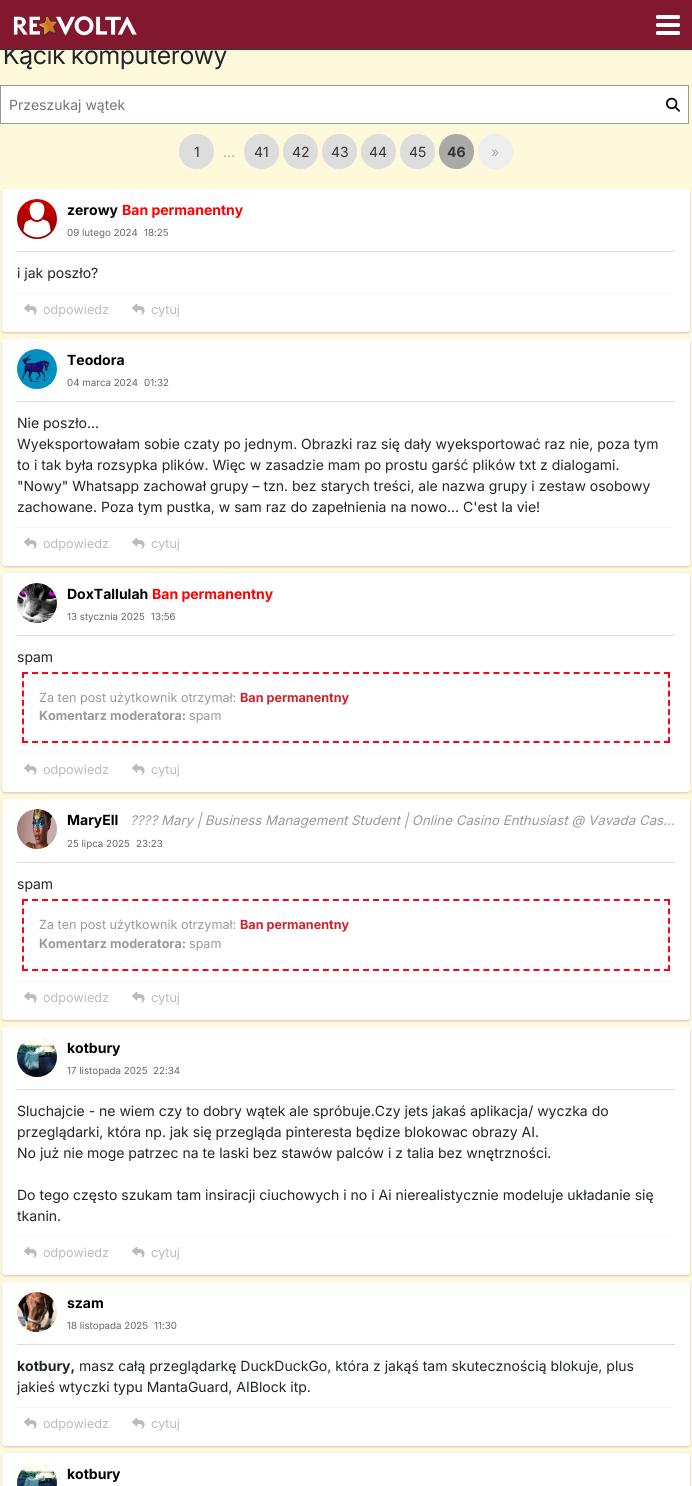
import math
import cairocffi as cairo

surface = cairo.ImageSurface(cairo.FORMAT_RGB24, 692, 1486)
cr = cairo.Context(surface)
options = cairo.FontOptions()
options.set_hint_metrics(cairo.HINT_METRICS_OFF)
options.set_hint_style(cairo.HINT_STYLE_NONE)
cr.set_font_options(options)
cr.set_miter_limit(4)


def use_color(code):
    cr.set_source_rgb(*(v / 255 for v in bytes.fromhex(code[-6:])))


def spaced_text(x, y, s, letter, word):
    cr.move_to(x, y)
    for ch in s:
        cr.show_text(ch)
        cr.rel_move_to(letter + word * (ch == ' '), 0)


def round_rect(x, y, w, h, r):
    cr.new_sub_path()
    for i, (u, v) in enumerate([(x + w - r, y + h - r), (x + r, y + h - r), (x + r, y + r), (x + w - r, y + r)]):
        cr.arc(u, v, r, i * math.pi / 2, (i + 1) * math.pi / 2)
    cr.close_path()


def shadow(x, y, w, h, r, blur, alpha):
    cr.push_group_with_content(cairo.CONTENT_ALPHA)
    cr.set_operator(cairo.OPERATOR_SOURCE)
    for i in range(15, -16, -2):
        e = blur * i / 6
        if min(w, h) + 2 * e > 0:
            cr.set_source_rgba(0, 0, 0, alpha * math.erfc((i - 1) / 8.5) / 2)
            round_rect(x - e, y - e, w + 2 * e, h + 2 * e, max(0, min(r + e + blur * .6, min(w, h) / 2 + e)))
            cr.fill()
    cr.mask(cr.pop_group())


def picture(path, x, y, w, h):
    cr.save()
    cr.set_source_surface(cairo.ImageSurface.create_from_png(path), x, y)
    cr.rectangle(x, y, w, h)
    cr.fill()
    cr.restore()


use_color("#fff9db")
cr.paint()
cr.select_font_face("Inter")
cr.set_font_size(25.25)
use_color("#212529")
cr.move_to(3, 64)
cr.show_text("K")
spaced_text(33, 64, "cik komputerowy", 0, -1)
use_color("#821730")
cr.rectangle(0, 0, 692, 49)
cr.fill()
use_color("#403336")
cr.rectangle(0, 49, 692, 1)
cr.fill()
picture("img1.png", 13, 16, 124, 20)
picture("img2.png", 656, 15, 24, 20)
cr.select_font_face("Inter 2")
use_color("#212529")
cr.move_to(19, 64)
cr.show_text("ą")
use_color("#ffffff")
cr.rectangle(0.5, 85.5, 688, 38)
cr.fill_preserve()
use_color("#999999")
cr.set_line_width(1)
cr.stroke()
cr.set_font_size(14)
use_color("#757575")
cr.move_to(9, 110)
cr.show_text("Przeszukaj wątek")
picture("img3.png", 666, 97, 14, 15)
use_color("#dddddd")
round_rect(179, 134, 35, 35, 17)
cr.fill()
use_color("#333333")
cr.move_to(194, 157)
cr.show_text("1")
use_color("#dddddd")
round_rect(244, 134, 35, 35, 17)
cr.fill()
use_color("#333333")
cr.move_to(254, 157)
cr.show_text("41")
use_color("#dddddd")
round_rect(283, 134, 35, 35, 17)
cr.fill()
use_color("#333333")
cr.move_to(292, 157)
cr.show_text("42")
use_color("#dddddd")
round_rect(322, 134, 35, 35, 17)
cr.fill()
use_color("#333333")
cr.move_to(331, 157)
cr.show_text("43")
use_color("#dddddd")
round_rect(361, 134, 35, 35, 17)
cr.fill()
use_color("#333333")
cr.move_to(369, 157)
cr.show_text("44")
use_color("#dddddd")
round_rect(400, 134, 35, 35, 17)
cr.fill()
use_color("#333333")
cr.move_to(409, 157)
cr.show_text("45")
use_color("#aaaaaa")
round_rect(439, 134, 35, 35, 17)
cr.fill()
cr.select_font_face("Inter", cairo.FONT_SLANT_NORMAL, cairo.FONT_WEIGHT_BOLD)
use_color("#333333")
cr.move_to(447, 157)
cr.show_text("46")
use_color("#eeeeee")
round_rect(478, 134, 35, 35, 17)
cr.fill()
cr.select_font_face("Inter 2")
use_color("#aaaaaa")
cr.move_to(491, 157)
cr.show_text("»")
cr.move_to(223, 157)
cr.show_text("...")
use_color("#000000")
shadow(2, 190, 688, 143, 3, 1, 0.2)
use_color("#ffffff")
round_rect(2, 189, 688, 143, 3)
cr.fill()
picture("img4.png", 17, 199, 40, 40)
cr.select_font_face("Inter", cairo.FONT_SLANT_NORMAL, cairo.FONT_WEIGHT_BOLD)
use_color("#000000")
cr.move_to(67, 215)
cr.show_text("zerowy")
use_color("#ff0000")
cr.move_to(122, 215)
cr.show_text("Ban permanentny")
cr.select_font_face("Inter 2")
cr.set_font_size(9.75)
use_color("#666666")
cr.move_to(67, 236)
cr.show_text("09 lutego 2024")
cr.move_to(144, 236)
cr.show_text("18:25")
use_color("#dddddd")
cr.rectangle(17, 251, 658, 1)
cr.fill()
cr.set_font_size(14)
use_color("#212529")
cr.move_to(17, 278)
cr.show_text("i jak poszło?")
cr.new_path()
cr.move_to(17, 293.5)
cr.line_to(675, 293.5)
use_color("#eeeeee")
cr.set_dash([1, 1])
cr.stroke()
picture("img5.png", 24, 303, 13, 12)
cr.set_font_size(12.6)
use_color("#bbbbbb")
cr.move_to(43, 314)
cr.show_text("odpowiedz")
picture("img5.png", 132, 303, 13, 12)
cr.move_to(151, 314)
cr.show_text("cytuj")
use_color("#000000")
shadow(2, 340, 688, 227, 3, 1, 0.2)
use_color("#ffffff")
round_rect(2, 339, 688, 227, 3)
cr.fill()
picture("img6.png", 17, 349, 40, 40)
cr.select_font_face("Inter", cairo.FONT_SLANT_NORMAL, cairo.FONT_WEIGHT_BOLD)
cr.set_font_size(14)
use_color("#000000")
cr.move_to(67, 365)
cr.show_text("Teodora")
cr.select_font_face("Inter 2")
cr.set_font_size(9.75)
use_color("#666666")
cr.move_to(67, 386)
cr.show_text("04 marca 2024")
cr.move_to(144, 386)
cr.show_text("01:32")
use_color("#dddddd")
cr.rectangle(17, 401, 658, 1)
cr.fill()
cr.set_font_size(14)
use_color("#212529")
cr.move_to(17, 428)
cr.show_text("Nie poszło...")
cr.move_to(17, 449)
cr.show_text("Wyeksportowałam sobie czaty po jednym. Obrazki raz się dały wyeksportować raz nie, poza tym")
cr.move_to(17, 470)
cr.show_text("to i tak była rozsypka plików. Więc w zasadzie mam po prostu garść plików txt z dialogami.")
cr.move_to(17, 491)
cr.show_text("\"Nowy\" Whatsapp zachował grupy – tzn. bez starych treści, ale nazwa grupy i zestaw osobowy")
cr.move_to(17, 512)
cr.show_text("zachowane. Poza tym pustka, w sam raz do zapełnienia na nowo... C'est la vie!")
cr.new_path()
cr.move_to(17, 527.5)
cr.line_to(675, 527.5)
use_color("#eeeeee")
cr.stroke()
picture("img5.png", 24, 537, 13, 12)
cr.set_font_size(12.6)
use_color("#bbbbbb")
cr.move_to(43, 548)
cr.show_text("odpowiedz")
picture("img5.png", 132, 537, 13, 12)
cr.move_to(151, 548)
cr.show_text("cytuj")
use_color("#000000")
shadow(2, 574, 688, 219, 3, 1, 0.2)
use_color("#ffffff")
round_rect(2, 573, 688, 219, 3)
cr.fill()
picture("img7.png", 17, 583, 40, 40)
cr.select_font_face("Inter", cairo.FONT_SLANT_NORMAL, cairo.FONT_WEIGHT_BOLD)
cr.set_font_size(14)
use_color("#000000")
cr.move_to(67, 599)
cr.show_text("DoxTallulah")
use_color("#ff0000")
cr.move_to(152, 599)
cr.show_text("Ban permanentny")
cr.select_font_face("Inter 2")
cr.set_font_size(9.75)
use_color("#666666")
cr.move_to(67, 620)
cr.show_text("13 stycznia 2025")
cr.move_to(151, 620)
cr.show_text("13:56")
use_color("#dddddd")
cr.rectangle(17, 635, 658, 1)
cr.fill()
cr.set_font_size(14)
use_color("#212529")
cr.move_to(17, 662)
cr.show_text("spam")
cr.new_path()
cr.move_to(22, 673)
cr.line_to(670, 673)
use_color("#ff0018")
cr.set_line_width(2)
cr.set_dash([6, 4.03])
cr.stroke()
cr.new_path()
cr.move_to(669, 672)
cr.line_to(669, 743)
cr.set_dash([6, 3.29])
cr.stroke()
cr.new_path()
cr.move_to(22, 742)
cr.line_to(670, 742)
cr.set_dash([6, 4.03])
cr.stroke()
cr.new_path()
cr.move_to(23, 672)
cr.line_to(23, 743)
cr.set_dash([6, 3.29])
cr.stroke()
cr.set_font_size(12.6)
use_color("#999999")
cr.move_to(39, 702)
cr.show_text("Za ten post użytkownik otrzymał:")
cr.select_font_face("Inter", cairo.FONT_SLANT_NORMAL, cairo.FONT_WEIGHT_BOLD)
use_color("#cf222d")
cr.move_to(240, 702)
cr.show_text("Ban permanentny")
use_color("#999999")
cr.move_to(39, 720)
cr.show_text("Komentarz moderatora:")
cr.select_font_face("Inter 2")
cr.move_to(189, 720)
cr.show_text("spam")
cr.new_path()
cr.move_to(17, 753.5)
cr.line_to(675, 753.5)
use_color("#eeeeee")
cr.set_line_width(1)
cr.set_dash([1, 1])
cr.stroke()
picture("img5.png", 24, 763, 13, 12)
use_color("#bbbbbb")
cr.move_to(43, 774)
cr.show_text("odpowiedz")
picture("img5.png", 132, 763, 13, 12)
cr.move_to(151, 774)
cr.show_text("cytuj")
use_color("#000000")
shadow(2, 800, 688, 221, 3, 1, 0.2)
use_color("#ffffff")
round_rect(2, 799, 688, 221, 3)
cr.fill()
picture("img8.png", 17, 809, 40, 40)
cr.select_font_face("Inter", cairo.FONT_SLANT_NORMAL, cairo.FONT_WEIGHT_BOLD)
cr.set_font_size(14)
use_color("#000000")
cr.move_to(67, 825)
cr.show_text("MaryEll")
cr.select_font_face("Inter", cairo.FONT_SLANT_ITALIC)
cr.set_font_size(13.3)
use_color("#999999")
cr.move_to(130, 825)
cr.show_text("???? Mary | Business Management Student | Online Casino Enthusiast @ Vavada Cas…")
cr.select_font_face("Inter 2")
cr.set_font_size(9.75)
use_color("#666666")
cr.move_to(67, 847)
cr.show_text("25 lipca 2025")
cr.move_to(136, 847)
cr.show_text("23:23")
use_color("#dddddd")
cr.rectangle(17, 862, 658, 1)
cr.fill()
cr.set_font_size(14)
use_color("#212529")
cr.move_to(17, 889)
cr.show_text("spam")
cr.new_path()
cr.move_to(22, 900)
cr.line_to(670, 900)
use_color("#ff0018")
cr.set_line_width(2)
cr.set_dash([6, 4.03])
cr.stroke()
cr.new_path()
cr.move_to(669, 899)
cr.line_to(669, 971)
cr.set_dash([6, 3.43])
cr.stroke()
cr.new_path()
cr.move_to(22, 970)
cr.line_to(670, 970)
cr.set_dash([6, 4.03])
cr.stroke()
cr.new_path()
cr.move_to(23, 899)
cr.line_to(23, 971)
cr.set_dash([6, 3.43])
cr.stroke()
cr.set_font_size(12.6)
use_color("#999999")
cr.move_to(39, 929)
cr.show_text("Za ten post użytkownik otrzymał:")
cr.select_font_face("Inter", cairo.FONT_SLANT_NORMAL, cairo.FONT_WEIGHT_BOLD)
use_color("#cf222d")
cr.move_to(240, 929)
cr.show_text("Ban permanentny")
use_color("#999999")
cr.move_to(39, 948)
cr.show_text("Komentarz moderatora:")
cr.select_font_face("Inter 2")
cr.move_to(189, 948)
cr.show_text("spam")
cr.new_path()
cr.move_to(17, 981.5)
cr.line_to(675, 981.5)
use_color("#eeeeee")
cr.set_line_width(1)
cr.set_dash([1, 1])
cr.stroke()
picture("img5.png", 24, 991, 13, 12)
use_color("#bbbbbb")
cr.move_to(43, 1002)
cr.show_text("odpowiedz")
picture("img5.png", 132, 991, 13, 12)
cr.move_to(151, 1002)
cr.show_text("cytuj")
use_color("#000000")
shadow(2, 1028, 688, 248, 3, 1, 0.2)
use_color("#ffffff")
round_rect(2, 1027, 688, 248, 3)
cr.fill()
picture("img9.png", 17, 1037, 40, 40)
cr.select_font_face("Inter", cairo.FONT_SLANT_NORMAL, cairo.FONT_WEIGHT_BOLD)
cr.set_font_size(14)
use_color("#000000")
cr.move_to(67, 1053)
cr.show_text("kotbury")
cr.select_font_face("Inter 2")
cr.set_font_size(9.75)
use_color("#666666")
cr.move_to(67, 1074)
cr.show_text("17 listopada 2025")
cr.move_to(153, 1074)
cr.show_text("22:34")
use_color("#dddddd")
cr.rectangle(17, 1089, 658, 1)
cr.fill()
cr.set_font_size(14)
use_color("#212529")
cr.move_to(17, 1116)
cr.show_text("Sluchajcie - ne wiem czy to dobry wątek ale spróbuje.Czy jets jakaś aplikacja/ wyczka do")
cr.move_to(17, 1137)
cr.show_text("przeglądarki, która np. jak się przegląda pinteresta będize blokowac obrazy AI.")
cr.move_to(17, 1158)
cr.show_text("No już nie moge patrzec na te laski bez stawów palców i z talia bez wnętrzności.")
cr.move_to(17, 1200)
cr.show_text("Do tego często szukam tam insiracji ciuchowych i no i Ai nierealistycznie modeluje układanie się")
cr.move_to(17, 1221)
cr.show_text("tkanin.")
cr.new_path()
cr.move_to(17, 1236.5)
cr.line_to(675, 1236.5)
use_color("#eeeeee")
cr.stroke()
picture("img5.png", 24, 1246, 13, 12)
cr.set_font_size(12.6)
use_color("#bbbbbb")
cr.move_to(43, 1257)
cr.show_text("odpowiedz")
picture("img5.png", 132, 1246, 13, 12)
cr.move_to(151, 1257)
cr.show_text("cytuj")
use_color("#000000")
shadow(2, 1283, 688, 164, 3, 1, 0.2)
use_color("#ffffff")
round_rect(2, 1282, 688, 164, 3)
cr.fill()
picture("img10.png", 17, 1292, 40, 40)
cr.select_font_face("Inter", cairo.FONT_SLANT_NORMAL, cairo.FONT_WEIGHT_BOLD)
cr.set_font_size(14)
use_color("#000000")
cr.move_to(67, 1308)
cr.show_text("szam")
cr.select_font_face("Inter 2")
cr.set_font_size(9.75)
use_color("#666666")
cr.move_to(67, 1329)
cr.show_text("18 listopada 2025")
cr.move_to(154, 1329)
cr.show_text("11:30")
use_color("#dddddd")
cr.rectangle(17, 1344, 658, 1)
cr.fill()
cr.select_font_face("Inter", cairo.FONT_SLANT_NORMAL, cairo.FONT_WEIGHT_BOLD)
cr.set_font_size(14)
use_color("#212529")
cr.move_to(17, 1371)
cr.show_text("kotbury,")
cr.select_font_face("Inter 2")
cr.move_to(79, 1371)
cr.show_text("masz całą przeglądarkę DuckDuckGo, która z jakąś tam skutecznością blokuje, plus")
cr.move_to(17, 1392)
cr.show_text("jakieś wtyczki typu MantaGuard, AIBlock itp.")
cr.new_path()
cr.move_to(17, 1407.5)
cr.line_to(675, 1407.5)
use_color("#eeeeee")
cr.stroke()
picture("img5.png", 24, 1417, 13, 12)
cr.set_font_size(12.6)
use_color("#bbbbbb")
cr.move_to(43, 1428)
cr.show_text("odpowiedz")
picture("img5.png", 132, 1417, 13, 12)
cr.move_to(151, 1428)
cr.show_text("cytuj")
use_color("#000000")
shadow(2, 1454, 688, 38, 3, 1, 0.2)
use_color("#ffffff")
round_rect(2, 1453, 688, 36, 3)
cr.fill()
picture("img11.png", 17, 1463, 40, 23)
cr.select_font_face("Inter", cairo.FONT_SLANT_NORMAL, cairo.FONT_WEIGHT_BOLD)
cr.set_font_size(14)
use_color("#000000")
cr.move_to(67, 1479)
cr.show_text("kotbury")
surface.write_to_png("result.png")
